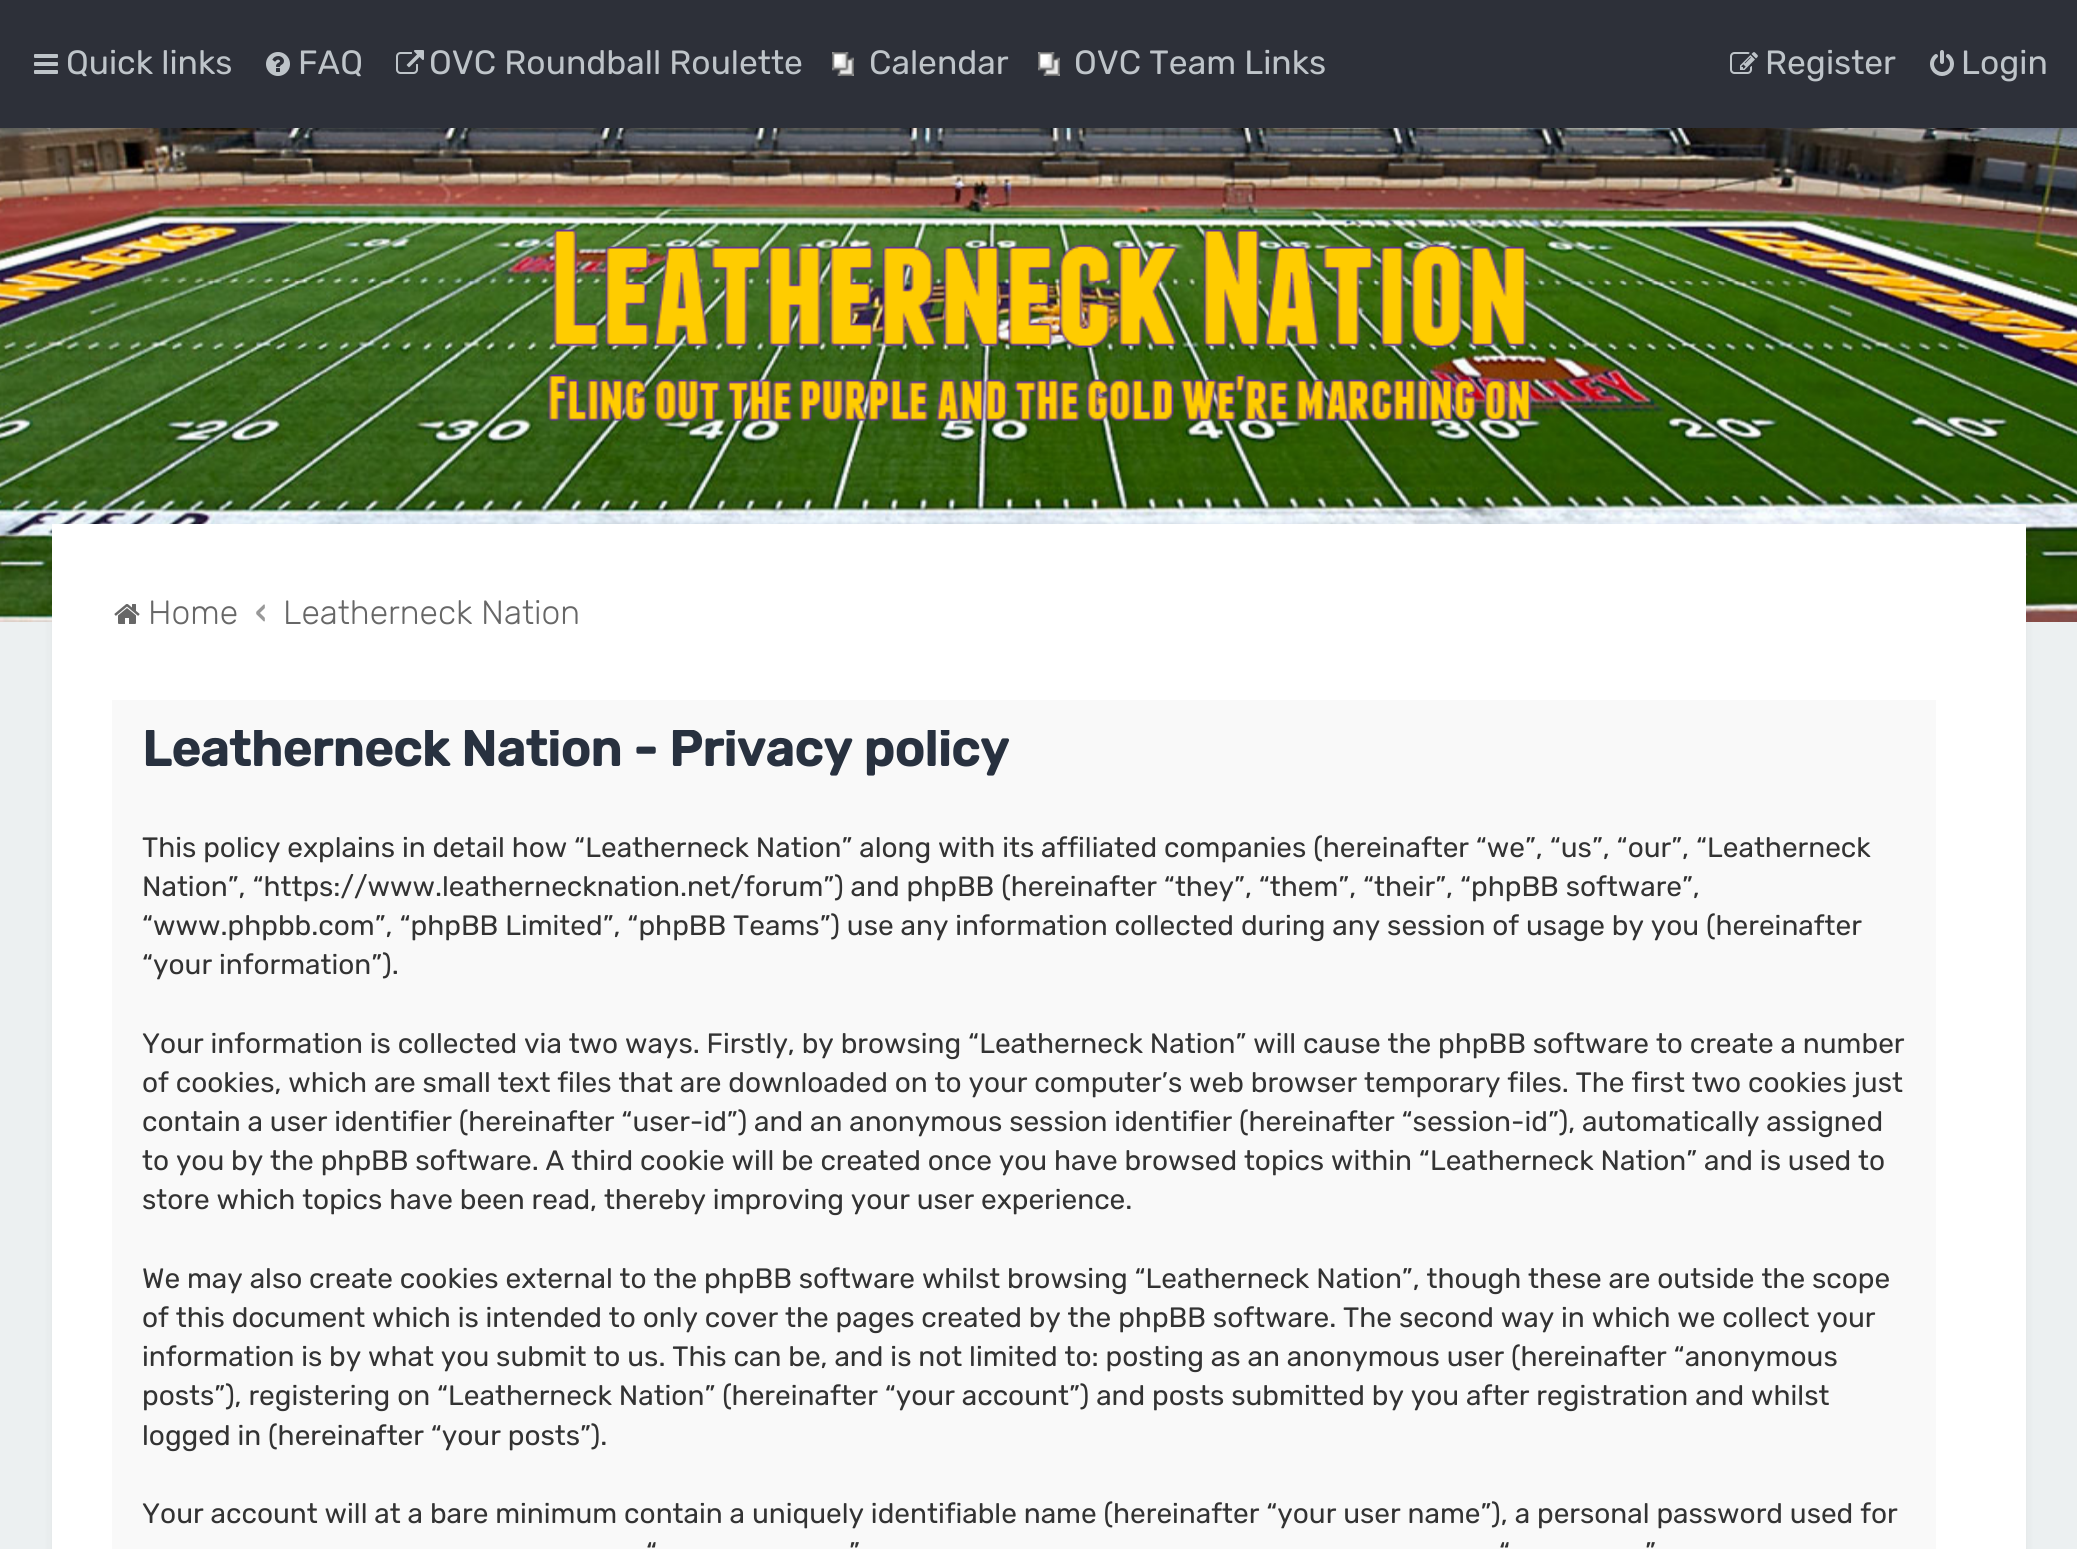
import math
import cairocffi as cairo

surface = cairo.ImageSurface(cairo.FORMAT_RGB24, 2077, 1549)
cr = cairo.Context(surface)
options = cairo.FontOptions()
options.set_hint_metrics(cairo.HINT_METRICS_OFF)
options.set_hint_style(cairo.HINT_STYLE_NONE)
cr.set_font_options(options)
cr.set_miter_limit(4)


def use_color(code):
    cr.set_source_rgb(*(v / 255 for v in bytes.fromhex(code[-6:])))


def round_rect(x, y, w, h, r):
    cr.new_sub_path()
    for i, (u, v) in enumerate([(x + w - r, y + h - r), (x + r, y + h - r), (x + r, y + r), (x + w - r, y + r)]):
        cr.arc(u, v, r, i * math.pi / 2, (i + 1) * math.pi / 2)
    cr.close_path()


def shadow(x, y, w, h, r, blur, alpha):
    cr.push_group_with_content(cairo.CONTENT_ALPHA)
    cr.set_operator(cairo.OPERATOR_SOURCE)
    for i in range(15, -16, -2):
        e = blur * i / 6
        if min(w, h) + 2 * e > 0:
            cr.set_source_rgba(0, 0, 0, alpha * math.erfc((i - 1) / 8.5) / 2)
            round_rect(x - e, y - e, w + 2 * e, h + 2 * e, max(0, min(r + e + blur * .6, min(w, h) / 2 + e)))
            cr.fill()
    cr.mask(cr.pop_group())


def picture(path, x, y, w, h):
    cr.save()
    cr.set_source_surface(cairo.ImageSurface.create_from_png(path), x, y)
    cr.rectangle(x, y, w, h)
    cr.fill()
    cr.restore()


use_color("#ecf0f1")
cr.paint()
use_color("#2d3039")
cr.rectangle(0, 0, 2077, 128)
cr.fill()
picture("img1.png", 34, 54, 24, 20)
cr.select_font_face("Rubik")
cr.set_font_size(33.6)
use_color("#bec4c9")
cr.move_to(66, 74)
cr.show_text("Quick links")
picture("img2.png", 266, 52, 24, 24)
cr.move_to(298, 74)
cr.show_text("FAQ")
picture("img3.png", 396, 50, 28, 24)
cr.move_to(429, 74)
cr.show_text("OVC Roundball Roulette")
picture("img4.png", 832, 52, 22, 24)
cr.move_to(869, 74)
cr.show_text("Calendar")
picture("img4.png", 1038, 52, 22, 24)
cr.move_to(1074, 74)
cr.show_text("OVC Team Links")
picture("img5.png", 1730, 52, 28, 22)
cr.move_to(1765, 74)
cr.show_text("Register")
picture("img6.png", 1930, 50, 24, 26)
cr.move_to(1961, 74)
cr.show_text("Login")
picture("img9.png", 0, 128, 2077, 494)
picture("img7.png", 547, 229, 985, 192)
use_color("#000000")
shadow(52, 524, 1974, 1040, 0, 5, 0.05)
use_color("#ffffff")
cr.rectangle(52, 524, 1974, 1025)
cr.fill()
picture("img8.png", 114, 604, 26, 20)
cr.select_font_face("Rubik Light")
use_color("#676767")
cr.move_to(148, 624)
cr.show_text("Home")
cr.select_font_face("Rubik Medium")
use_color("#999999")
cr.move_to(255, 624)
cr.show_text("‹")
cr.select_font_face("Rubik Light")
use_color("#676767")
cr.move_to(283, 624)
cr.show_text("Leatherneck Nation")
use_color("#f9f9f9")
cr.rectangle(112, 700, 1824, 849)
cr.fill()
cr.save()
cr.rectangle(142, 730, 1764, 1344)
cr.clip()
cr.select_font_face("Rubik", cairo.FONT_SLANT_NORMAL, cairo.FONT_WEIGHT_BOLD)
cr.set_font_size(50.4)
use_color("#28313f")
cr.move_to(142, 766)
cr.show_text("Leatherneck Nation - Privacy policy")
cr.restore()
cr.select_font_face("Rubik")
cr.set_font_size(28)
use_color("#333333")
cr.move_to(142, 857)
cr.show_text("This policy explains in detail how “Leatherneck Nation” along with its affiliated companies (hereinafter “we”, “us”, “our”, “Leatherneck")
cr.move_to(142, 896)
cr.show_text("Nation”, “https://www.leathernecknation.net/forum”) and phpBB (hereinafter “they”, “them”, “their”, “phpBB software”,")
cr.move_to(142, 935)
cr.show_text("“www.phpbb.com”, “phpBB Limited”, “phpBB Teams”) use any information collected during any session of usage by you (hereinafter")
cr.move_to(142, 974)
cr.show_text("“your information”).")
cr.move_to(142, 1053)
cr.show_text("Your information is collected via two ways. Firstly, by browsing “Leatherneck Nation” will cause the phpBB software to create a number")
cr.move_to(142, 1092)
cr.show_text("of cookies, which are small text files that are downloaded on to your computer’s web browser temporary files. The first two cookies just")
cr.move_to(142, 1131)
cr.show_text("contain a user identifier (hereinafter “user-id”) and an anonymous session identifier (hereinafter “session-id”), automatically assigned")
cr.move_to(142, 1170)
cr.show_text("to you by the phpBB software. A third cookie will be created once you have browsed topics within “Leatherneck Nation” and is used to")
cr.move_to(142, 1209)
cr.show_text("store which topics have been read, thereby improving your user experience.")
cr.move_to(142, 1288)
cr.show_text("We may also create cookies external to the phpBB software whilst browsing “Leatherneck Nation”, though these are outside the scope")
cr.move_to(142, 1327)
cr.show_text("of this document which is intended to only cover the pages created by the phpBB software. The second way in which we collect your")
cr.move_to(142, 1366)
cr.show_text("information is by what you submit to us. This can be, and is not limited to: posting as an anonymous user (hereinafter “anonymous")
cr.move_to(142, 1405)
cr.show_text("posts”), registering on “Leatherneck Nation” (hereinafter “your account”) and posts submitted by you after registration and whilst")
cr.move_to(142, 1445)
cr.show_text("logged in (hereinafter “your posts”).")
cr.move_to(142, 1523)
cr.show_text("Your account will at a bare minimum contain a uniquely identifiable name (hereinafter “your user name”), a personal password used for")
cr.move_to(646, 1562)
cr.show_text("“")
cr.move_to(849, 1562)
cr.show_text("”")
cr.move_to(1499, 1562)
cr.show_text("“")
cr.move_to(1645, 1562)
cr.show_text("”")
surface.write_to_png("result.png")
